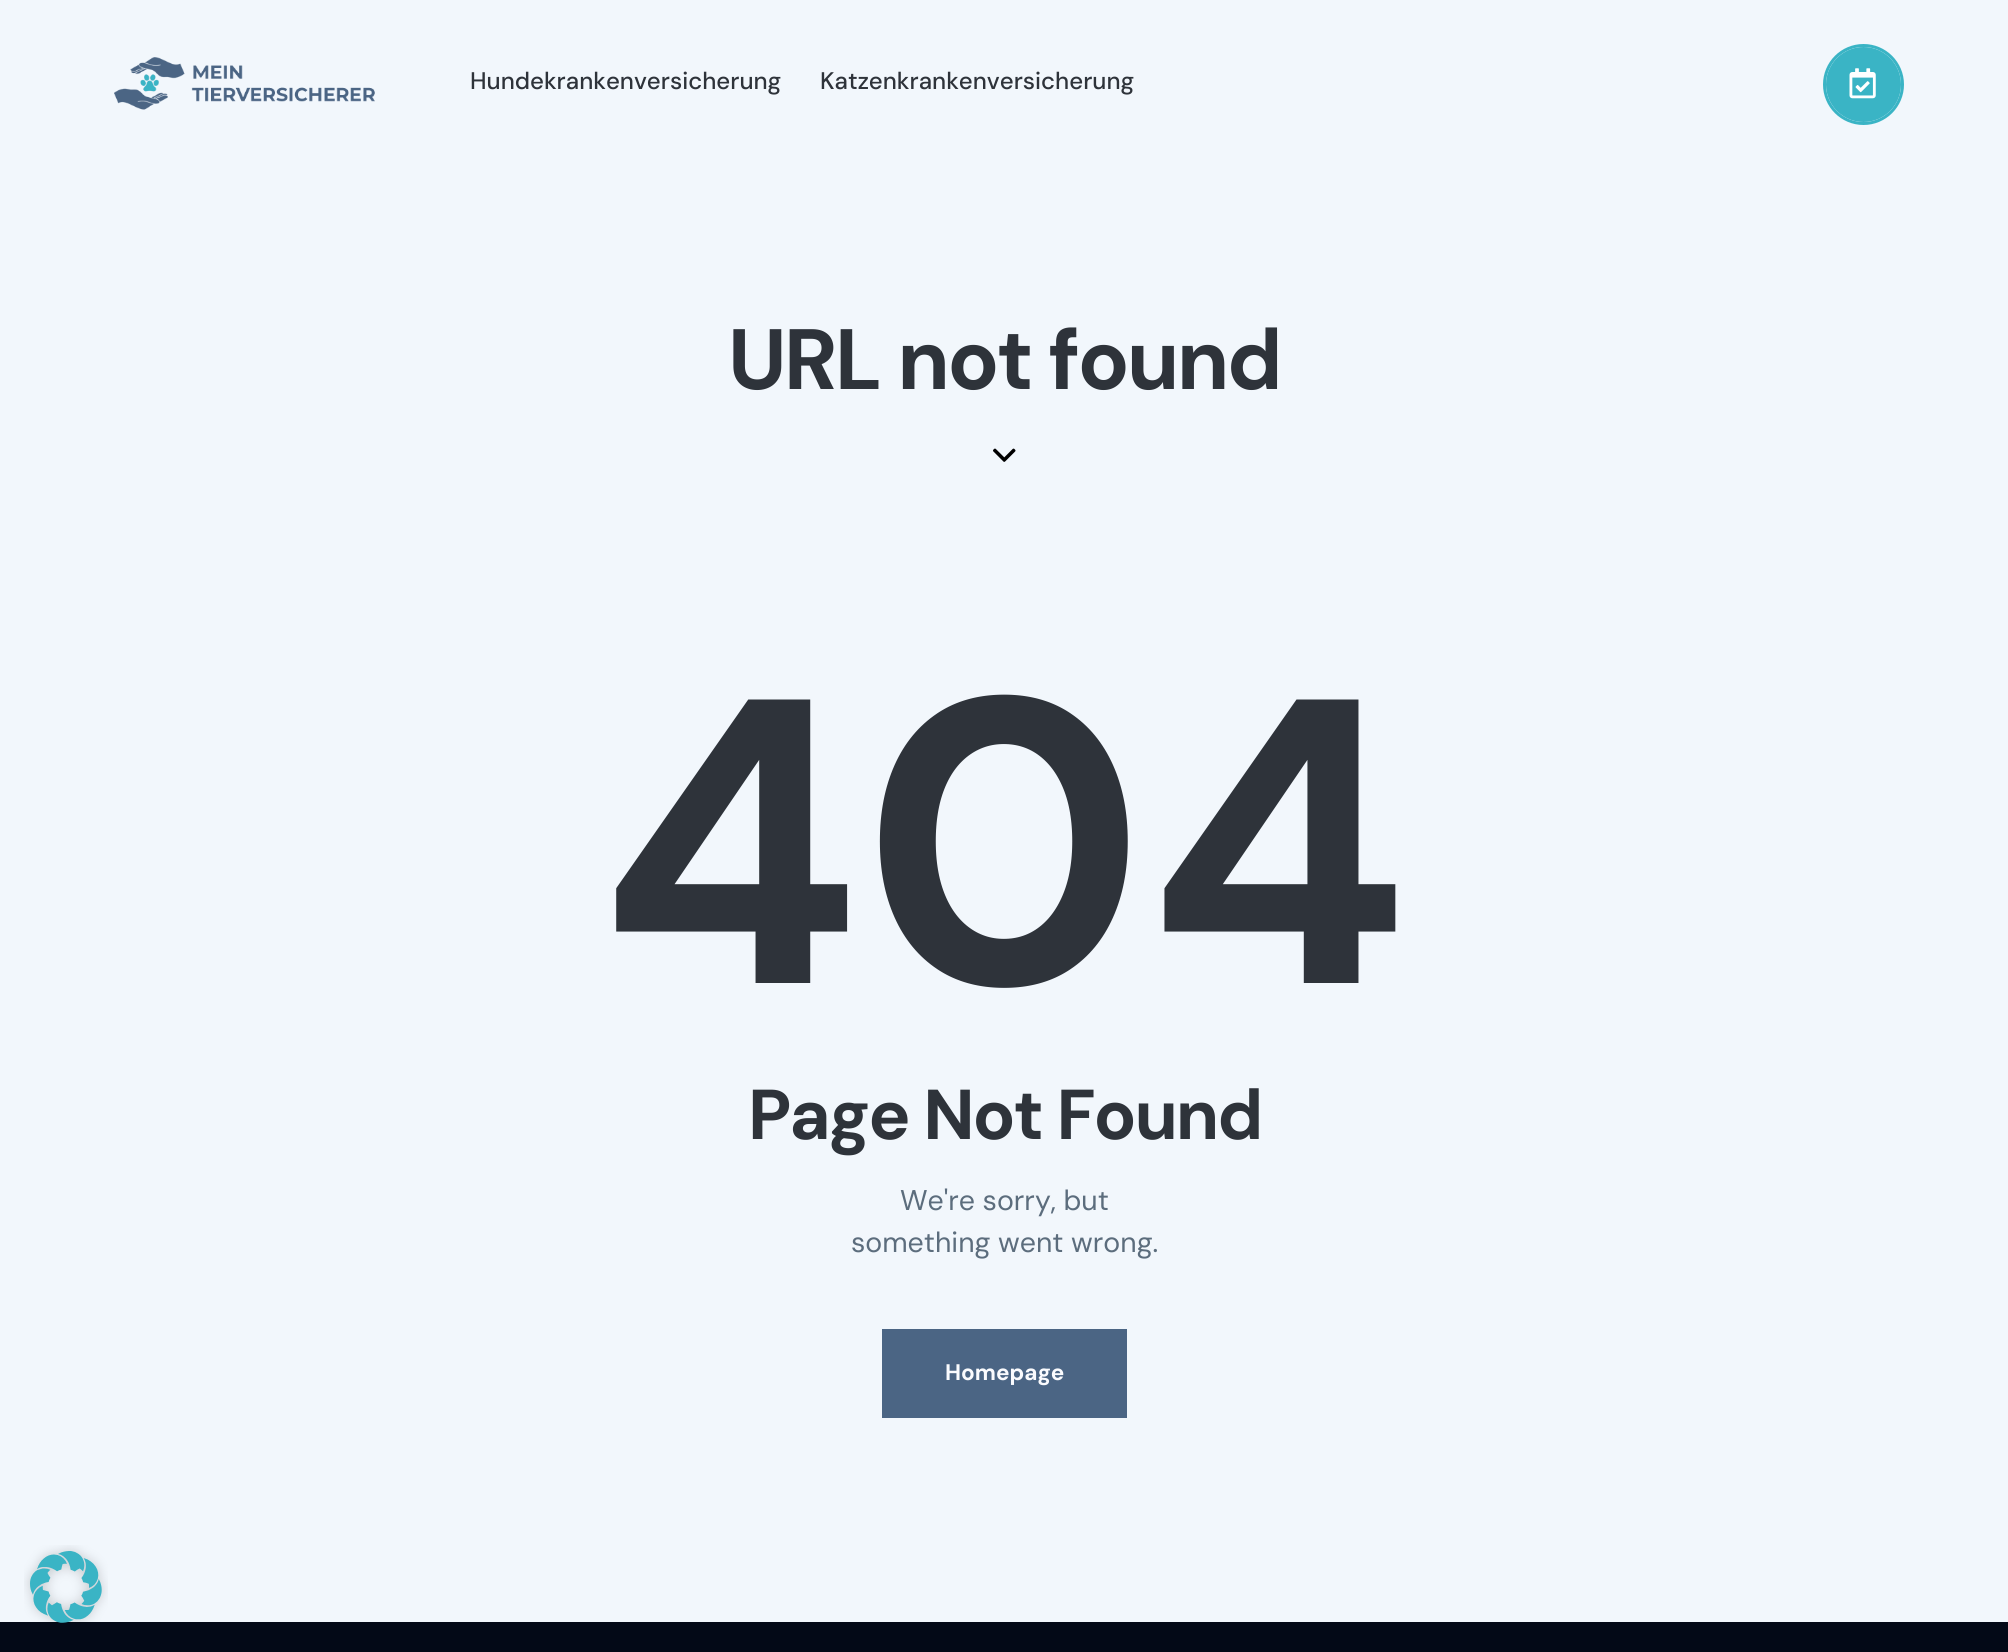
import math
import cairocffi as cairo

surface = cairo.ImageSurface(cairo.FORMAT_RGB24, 2008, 1652)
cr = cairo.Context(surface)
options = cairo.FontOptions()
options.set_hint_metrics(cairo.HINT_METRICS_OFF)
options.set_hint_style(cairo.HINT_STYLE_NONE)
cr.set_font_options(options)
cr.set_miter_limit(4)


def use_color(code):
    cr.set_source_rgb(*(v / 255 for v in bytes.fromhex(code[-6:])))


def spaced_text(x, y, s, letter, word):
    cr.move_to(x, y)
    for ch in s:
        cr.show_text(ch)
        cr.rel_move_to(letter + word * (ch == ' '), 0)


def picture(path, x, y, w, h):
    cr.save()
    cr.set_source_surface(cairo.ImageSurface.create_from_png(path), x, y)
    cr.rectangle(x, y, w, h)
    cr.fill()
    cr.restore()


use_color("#f2f7fc")
cr.paint()
picture("img1.png", 114, 57, 261, 53)
cr.select_font_face("DM Sans Medium")
cr.set_font_size(24)
use_color("#2e333a")
cr.move_to(470, 89)
cr.show_text("Hundekrankenversicherung")
cr.move_to(820, 89)
cr.show_text("Katzenkrankenversicherung")
cr.new_path()
cr.arc(1863.5, 84.5, 39, 0, 2 * math.pi)
use_color("#3ab4c5")
cr.set_line_width(3)
cr.stroke()
cr.arc(1863.5, 84.5, 37.5, 0, 2 * math.pi)
cr.fill()
picture("img2.png", 1849, 68, 27, 31)
cr.select_font_face("DM Sans", cairo.FONT_SLANT_NORMAL, cairo.FONT_WEIGHT_BOLD)
cr.set_font_size(85.5)
use_color("#2e333a")
spaced_text(728, 389, "URL not found", -2.75, 0)
picture("img3.png", 993, 448, 23, 14)
cr.set_font_size(405)
cr.move_to(598, 983)
cr.show_text("404")
cr.set_font_size(70.5)
spaced_text(748, 1139, "Page Not Found", -2.1, 0)
cr.select_font_face("DM Sans")
cr.set_font_size(28.5)
use_color("#5c6d7d")
cr.move_to(900, 1210)
cr.show_text("We're sorry, but")
cr.move_to(851, 1252)
cr.show_text("something went wrong.")
use_color("#4b6584")
cr.rectangle(882, 1329, 245, 89)
cr.fill()
cr.select_font_face("DM Sans", cairo.FONT_SLANT_NORMAL, cairo.FONT_WEIGHT_BOLD)
cr.set_font_size(22.5)
use_color("#fafbfe")
cr.move_to(945, 1380)
cr.show_text("Homepage")
use_color("#030917")
cr.rectangle(0, 1622, 2008, 30)
cr.fill()
picture("img4.png", 24, 1545, 84, 78)
surface.write_to_png("result.png")
